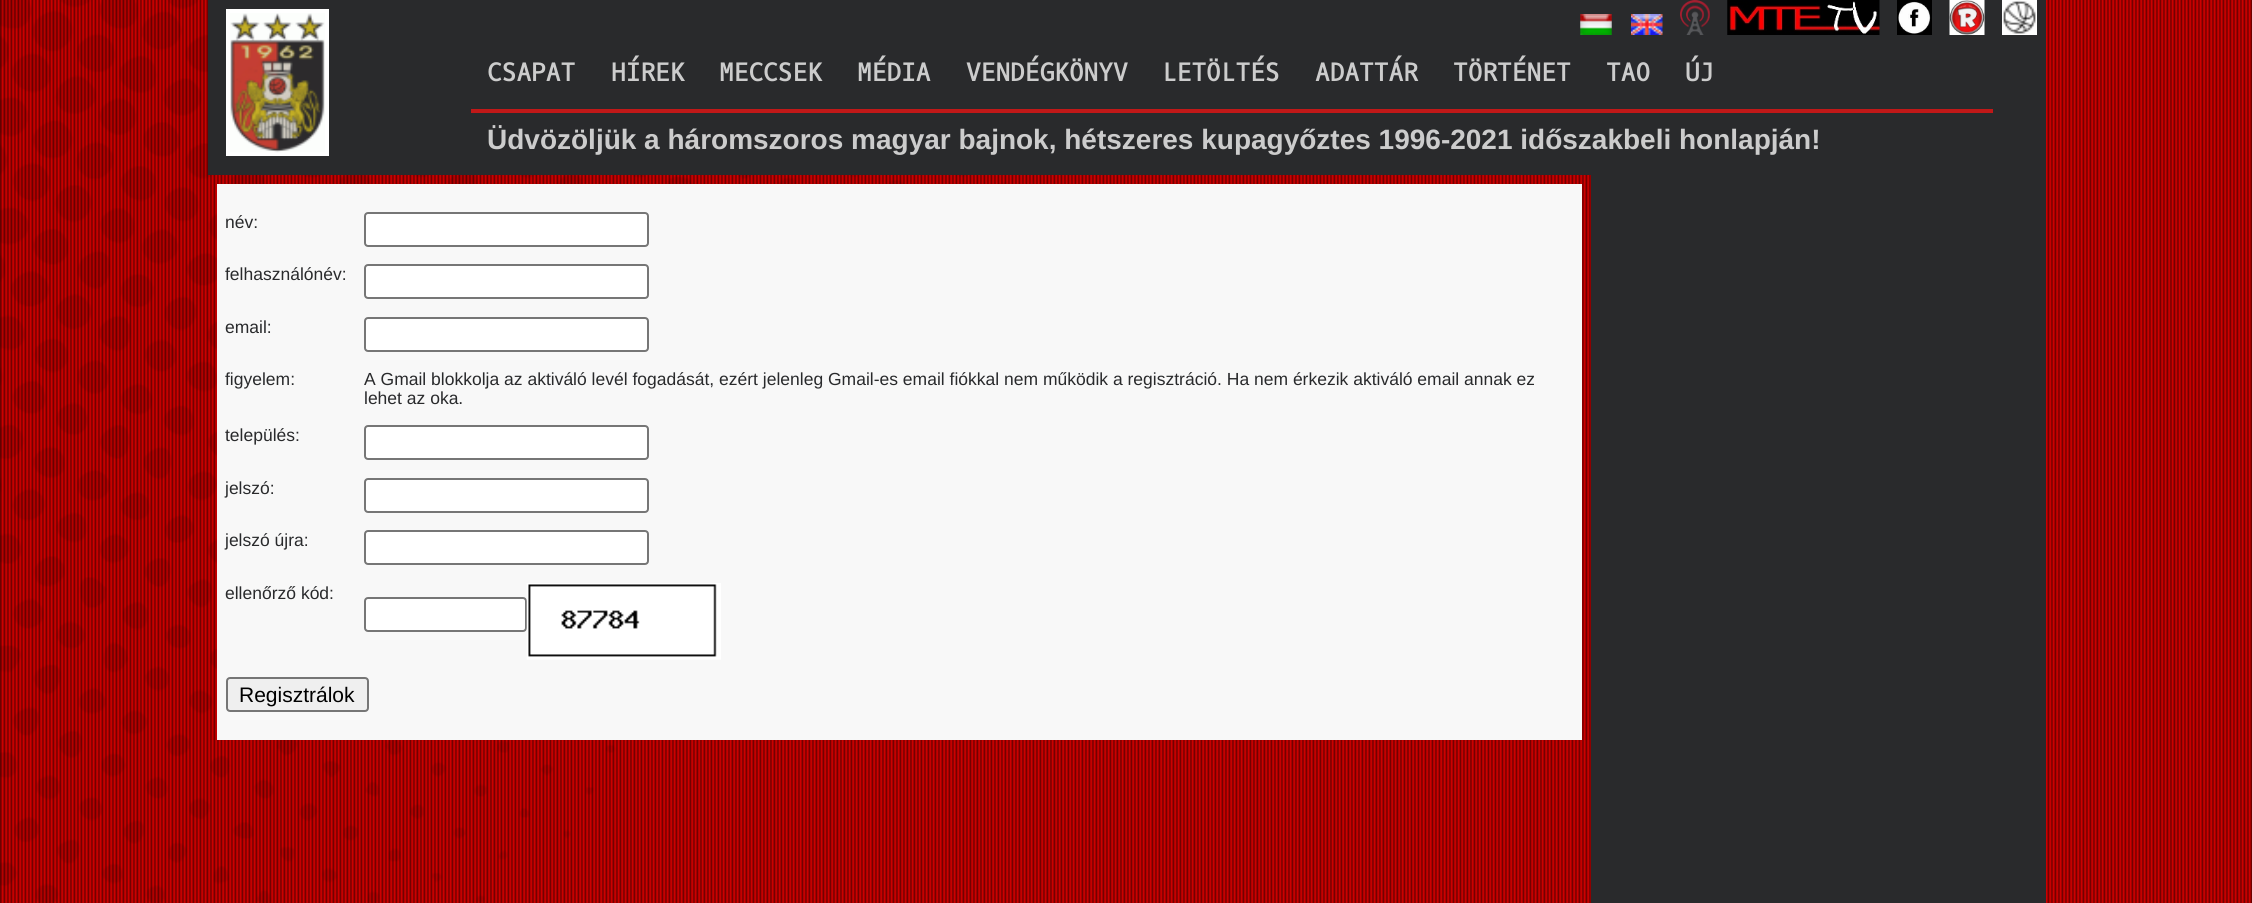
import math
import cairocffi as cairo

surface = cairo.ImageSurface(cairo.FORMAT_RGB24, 2252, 903)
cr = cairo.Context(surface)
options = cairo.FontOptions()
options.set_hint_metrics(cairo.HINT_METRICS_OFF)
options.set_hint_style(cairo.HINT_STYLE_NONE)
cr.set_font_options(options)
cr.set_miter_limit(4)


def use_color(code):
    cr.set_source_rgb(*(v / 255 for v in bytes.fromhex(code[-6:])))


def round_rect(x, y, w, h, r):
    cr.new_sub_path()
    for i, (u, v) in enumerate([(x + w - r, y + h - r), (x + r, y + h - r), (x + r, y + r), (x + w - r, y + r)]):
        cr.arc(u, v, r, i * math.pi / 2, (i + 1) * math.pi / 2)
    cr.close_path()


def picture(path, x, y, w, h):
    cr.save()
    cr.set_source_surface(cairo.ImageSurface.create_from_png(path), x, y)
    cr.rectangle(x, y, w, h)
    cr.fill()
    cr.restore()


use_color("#ffffff")
cr.paint()
picture("img1.png", 0, 0, 2252, 903)
use_color("#292a2c")
cr.rectangle(208, 0, 1838, 175)
cr.fill()
cr.rectangle(228, 11, 99, 143)
use_color("#ffffff")
cr.set_line_width(4)
cr.stroke()
picture("img2.png", 230, 13, 95, 140)
picture("img3.png", 1580, 14, 32, 21)
picture("img4.png", 1631, 14, 32, 21)
picture("img5.png", 1680, 0, 30, 35)
picture("img6.png", 1727, 0, 153, 35)
picture("img7.png", 1897, 0, 35, 35)
picture("img8.png", 1949, 0, 36, 35)
picture("img9.png", 2002, 0, 35, 35)
use_color("#c01818")
cr.rectangle(471, 109, 1522, 4)
cr.fill()
cr.select_font_face("Oxygen Mono", cairo.FONT_SLANT_NORMAL, cairo.FONT_WEIGHT_BOLD)
cr.set_font_size(24.5)
use_color("#cccccc")
cr.move_to(487, 81)
cr.show_text("CSAPAT")
cr.move_to(611, 81)
cr.show_text("HÍREK")
cr.move_to(719, 81)
cr.show_text("MECCSEK")
cr.move_to(857, 81)
cr.show_text("MÉDIA")
cr.move_to(966, 81)
cr.show_text("VENDÉGKÖNYV")
cr.move_to(1162, 81)
cr.show_text("LETÖLTÉS")
cr.move_to(1315, 81)
cr.show_text("ADATTÁR")
cr.move_to(1453, 81)
cr.show_text("TÖRTÉNET")
cr.move_to(1606, 81)
cr.show_text("TAO")
cr.move_to(1685, 81)
cr.show_text("ÚJ")
cr.select_font_face("Liberation Sans", cairo.FONT_SLANT_NORMAL, cairo.FONT_WEIGHT_BOLD)
cr.set_font_size(28)
cr.move_to(487, 149)
cr.show_text("Üdvözöljük a háromszoros magyar bajnok, hétszeres kupagyőztes 1996-2021 időszakbeli honlapján!")
use_color("#f8f8f8")
cr.rectangle(217, 184, 1365, 556)
cr.fill()
cr.select_font_face("Liberation Sans")
cr.set_font_size(17.5)
use_color("#292a2c")
cr.move_to(225, 228)
cr.show_text("név:")
use_color("#ffffff")
round_rect(365, 213, 283, 33, 3)
cr.fill_preserve()
use_color("#767676")
cr.set_line_width(2)
cr.stroke()
use_color("#292a2c")
cr.move_to(225, 280)
cr.show_text("felhasználónév:")
use_color("#ffffff")
round_rect(365, 265, 283, 33, 3)
cr.fill_preserve()
use_color("#767676")
cr.stroke()
use_color("#292a2c")
cr.move_to(225, 333)
cr.show_text("email:")
use_color("#ffffff")
round_rect(365, 318, 283, 33, 3)
cr.fill_preserve()
use_color("#767676")
cr.stroke()
use_color("#292a2c")
cr.move_to(225, 385)
cr.show_text("figyelem:")
cr.move_to(364, 385)
cr.show_text("A Gmail blokkolja az aktiváló levél fogadását, ezért jelenleg Gmail-es email fiókkal nem működik a regisztráció. Ha nem érkezik aktiváló email annak ez")
cr.move_to(364, 404)
cr.show_text("lehet az oka.")
cr.move_to(225, 441)
cr.show_text("település:")
use_color("#ffffff")
round_rect(365, 426, 283, 33, 3)
cr.fill_preserve()
use_color("#767676")
cr.stroke()
use_color("#292a2c")
cr.move_to(225, 494)
cr.show_text("jelszó:")
use_color("#ffffff")
round_rect(365, 479, 283, 33, 3)
cr.fill_preserve()
use_color("#767676")
cr.stroke()
use_color("#292a2c")
cr.move_to(225, 546)
cr.show_text("jelszó újra:")
use_color("#ffffff")
round_rect(365, 531, 283, 33, 3)
cr.fill_preserve()
use_color("#767676")
cr.stroke()
use_color("#292a2c")
cr.move_to(225, 599)
cr.show_text("ellenőrző kód:")
use_color("#ffffff")
round_rect(365, 598, 161, 33, 3)
cr.fill_preserve()
use_color("#767676")
cr.stroke()
picture("img10.png", 526, 583, 195, 77)
use_color("#efefef")
round_rect(227, 678, 141, 33, 3)
cr.fill_preserve()
use_color("#767676")
cr.stroke()
cr.set_font_size(21)
use_color("#000000")
cr.move_to(239, 702)
cr.show_text("Regisztrálok")
use_color("#292a2c")
cr.rectangle(1591, 175, 455, 728)
cr.fill()
surface.write_to_png("result.png")
